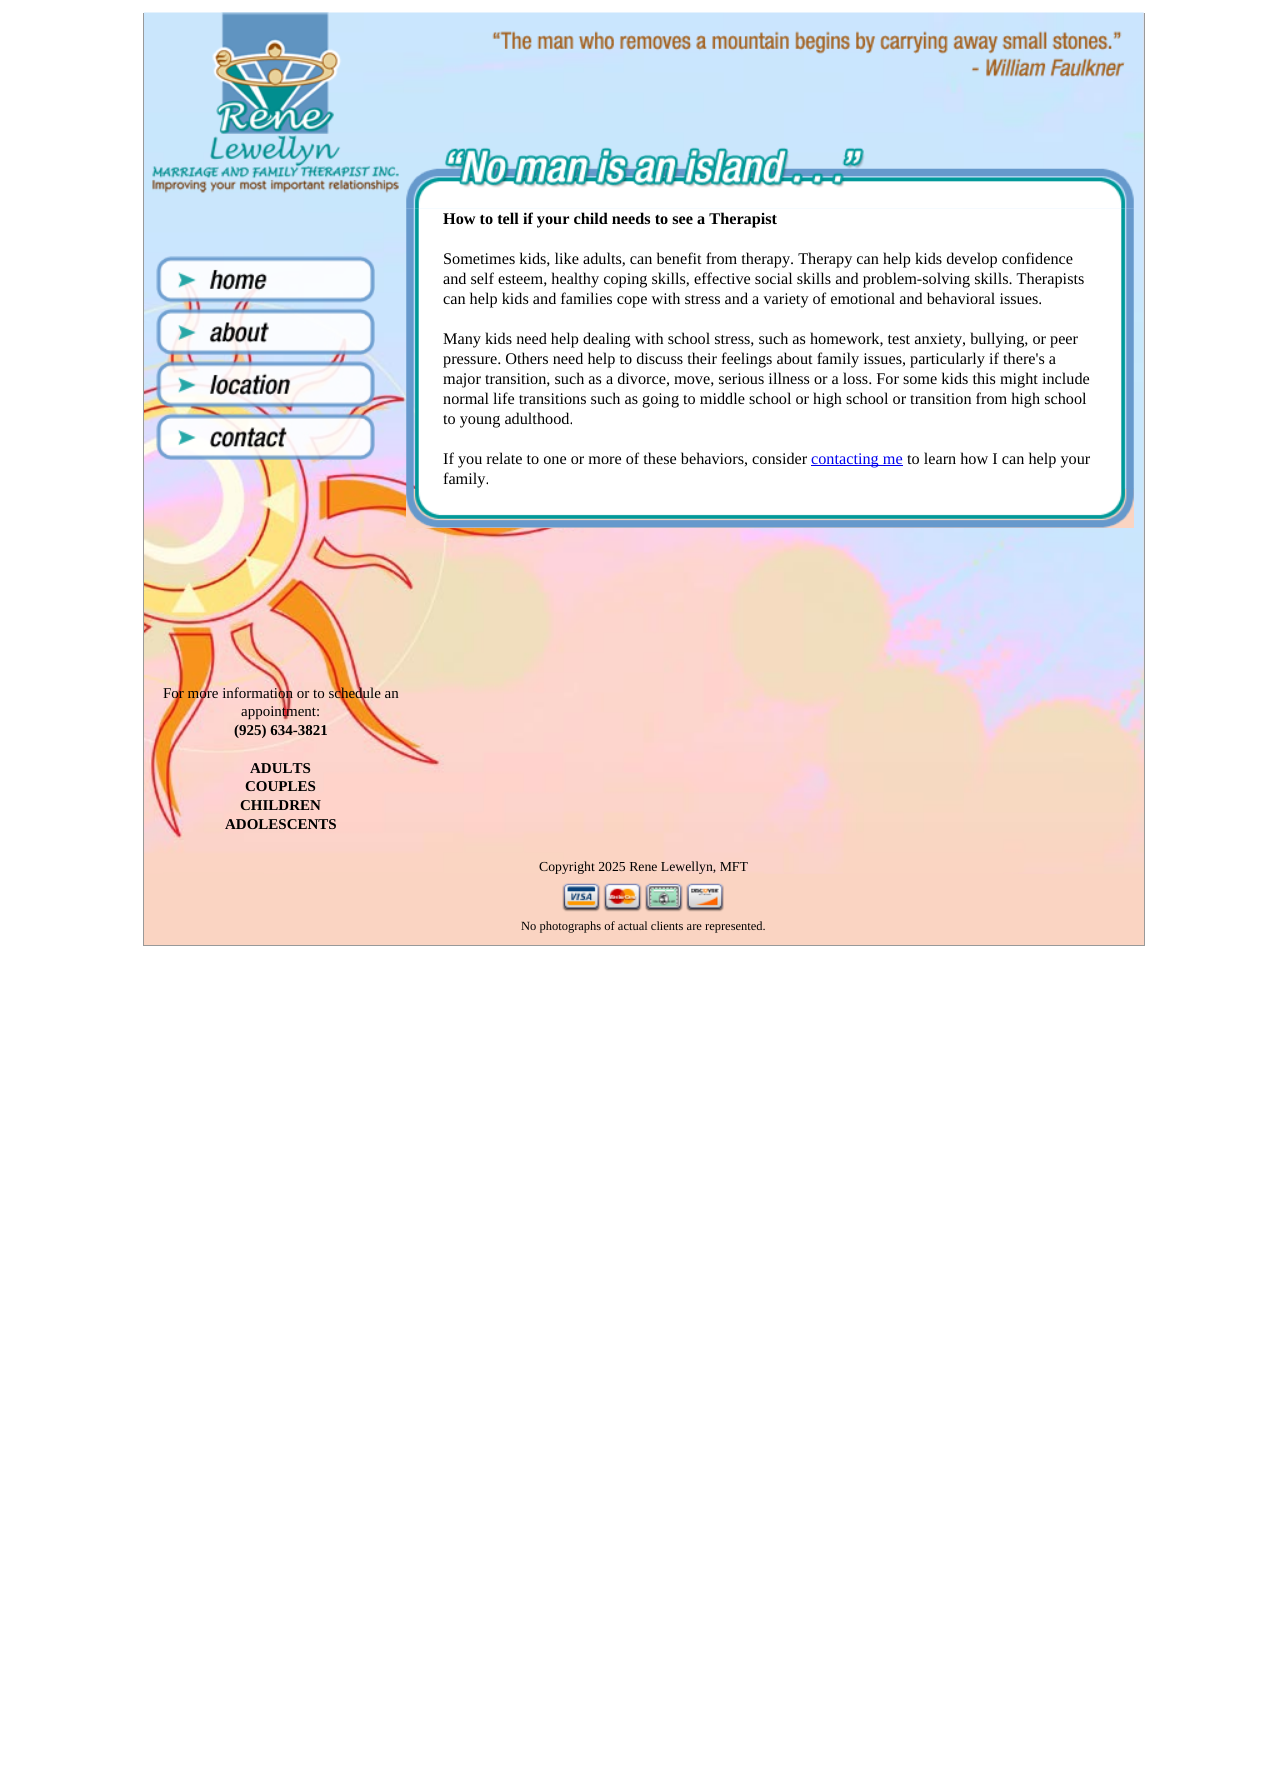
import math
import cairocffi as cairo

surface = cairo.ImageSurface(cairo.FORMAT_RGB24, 1286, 1789)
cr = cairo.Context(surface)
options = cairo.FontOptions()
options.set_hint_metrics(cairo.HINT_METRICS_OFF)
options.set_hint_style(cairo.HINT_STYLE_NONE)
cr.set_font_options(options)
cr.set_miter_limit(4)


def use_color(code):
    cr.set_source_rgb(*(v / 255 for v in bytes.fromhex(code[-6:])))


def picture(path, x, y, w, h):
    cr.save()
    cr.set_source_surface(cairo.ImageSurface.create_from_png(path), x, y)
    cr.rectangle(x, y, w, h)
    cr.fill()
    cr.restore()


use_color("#ffffff")
cr.paint()
use_color("#fad4c2")
cr.rectangle(144, 13, 1000, 932)
cr.fill()
picture("img1.png", 143, 12, 1001, 862)
use_color("#999999")
cr.rectangle(1144, 13, 1, 933)
cr.fill()
cr.rectangle(143, 945, 1002, 1)
cr.fill()
cr.rectangle(143, 13, 1, 933)
cr.fill()
picture("img2.png", 492, 31, 633, 46)
picture("img5.png", 406, 208, 728, 281)
picture("img4.png", 406, 168, 728, 41)
picture("img3.png", 444, 147, 421, 41)
cr.select_font_face("Liberation Serif", cairo.FONT_SLANT_NORMAL, cairo.FONT_WEIGHT_BOLD)
cr.set_font_size(16.25)
use_color("#000000")
cr.move_to(443, 224)
cr.show_text("How to tell if your child needs to see a Therapist")
cr.select_font_face("Liberation Serif")
cr.move_to(443, 264)
cr.show_text("Sometimes kids, like adults, can benefit from therapy. Therapy can help kids develop confidence")
cr.move_to(443, 284)
cr.show_text("and self esteem, healthy coping skills, effective social skills and problem-solving skills. Therapists")
cr.move_to(443, 304)
cr.show_text("can help kids and families cope with stress and a variety of emotional and behavioral issues.")
cr.move_to(443, 344)
cr.show_text("Many kids need help dealing with school stress, such as homework, test anxiety, bullying, or peer")
cr.move_to(443, 364)
cr.show_text("pressure. Others need help to discuss their feelings about family issues, particularly if there's a")
cr.move_to(443, 384)
cr.show_text("major transition, such as a divorce, move, serious illness or a loss. For some kids this might include")
cr.move_to(443, 404)
cr.show_text("normal life transitions such as going to middle school or high school or transition from high school")
cr.move_to(443, 424)
cr.show_text("to young adulthood.")
cr.move_to(443, 464)
cr.show_text("If you relate to one or more of these behaviors, consider")
use_color("#0000ee")
cr.rectangle(811, 465, 92, 1)
cr.fill()
cr.move_to(811, 464)
cr.show_text("contacting me")
use_color("#000000")
cr.move_to(907, 464)
cr.show_text("to learn how I can help your")
cr.move_to(443, 484)
cr.show_text("family.")
use_color("#fad4c2")
cr.rectangle(406, 489, 728, 39)
cr.fill()
picture("img6.png", 406, 488, 728, 40)
picture("img7.png", 152, 12, 247, 181)
picture("img8.png", 156, 256, 219, 47)
picture("img9.png", 156, 308, 219, 47)
picture("img10.png", 156, 361, 219, 47)
picture("img11.png", 156, 413, 219, 47)
cr.set_font_size(15)
use_color("#000000")
cr.move_to(163, 698)
cr.show_text("For more information or to schedule an")
cr.move_to(241, 716)
cr.show_text("appointment:")
cr.select_font_face("Liberation Serif", cairo.FONT_SLANT_NORMAL, cairo.FONT_WEIGHT_BOLD)
cr.move_to(234, 735)
cr.show_text("(925) 634-3821")
cr.move_to(250, 773)
cr.show_text("ADULTS")
cr.move_to(245, 791)
cr.show_text("COUPLES")
cr.move_to(240, 810)
cr.show_text("CHILDREN")
cr.move_to(225, 829)
cr.show_text("ADOLESCENTS")
cr.select_font_face("Liberation Serif")
cr.set_font_size(13.75)
cr.move_to(539, 871)
cr.show_text("Copyright 2025 Rene Lewellyn, MFT")
picture("img12.png", 562, 883, 162, 29)
cr.set_font_size(12.5)
cr.move_to(521, 930)
cr.show_text("No photographs of actual clients are represented.")
surface.write_to_png("result.png")
